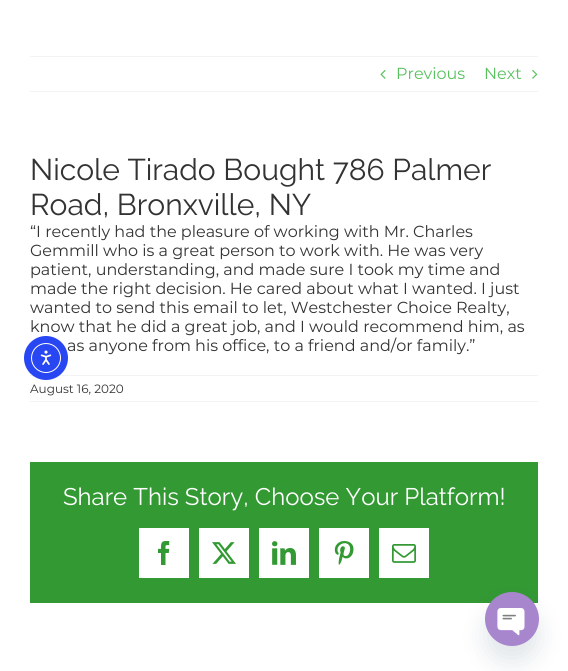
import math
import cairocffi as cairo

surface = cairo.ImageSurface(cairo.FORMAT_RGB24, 568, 671)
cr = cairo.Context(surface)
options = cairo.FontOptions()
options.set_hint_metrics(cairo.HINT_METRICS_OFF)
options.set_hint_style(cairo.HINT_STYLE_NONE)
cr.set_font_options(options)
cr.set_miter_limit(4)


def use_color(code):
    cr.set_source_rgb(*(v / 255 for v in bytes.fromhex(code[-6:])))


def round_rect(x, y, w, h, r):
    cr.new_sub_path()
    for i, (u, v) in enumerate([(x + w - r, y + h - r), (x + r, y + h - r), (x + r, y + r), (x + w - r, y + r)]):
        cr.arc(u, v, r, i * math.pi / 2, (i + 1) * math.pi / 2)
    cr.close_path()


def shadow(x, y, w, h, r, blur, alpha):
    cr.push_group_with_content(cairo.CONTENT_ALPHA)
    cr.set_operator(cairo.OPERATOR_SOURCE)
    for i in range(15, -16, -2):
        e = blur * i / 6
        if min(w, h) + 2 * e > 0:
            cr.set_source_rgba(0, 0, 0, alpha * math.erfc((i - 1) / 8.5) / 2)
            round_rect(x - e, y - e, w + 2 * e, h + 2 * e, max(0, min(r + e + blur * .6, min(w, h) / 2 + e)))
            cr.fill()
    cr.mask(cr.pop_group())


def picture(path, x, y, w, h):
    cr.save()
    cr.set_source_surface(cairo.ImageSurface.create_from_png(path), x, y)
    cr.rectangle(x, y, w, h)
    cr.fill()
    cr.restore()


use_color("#ffffff")
cr.paint()
use_color("#f2f3f5")
cr.rectangle(30, 56, 508, 1)
cr.fill()
cr.rectangle(30, 91, 508, 1)
cr.fill()
picture("img1.png", 380, 70, 6, 9)
cr.select_font_face("Montserrat")
cr.set_font_size(16)
use_color("#57c15e")
cr.move_to(396, 79)
cr.show_text("Previous")
cr.move_to(484, 79)
cr.show_text("Next")
picture("img2.png", 532, 70, 6, 9)
cr.select_font_face("Raleway")
cr.set_font_size(30)
use_color("#333333")
cr.move_to(30, 180)
cr.show_text("Nicole Tirado Bought 786 Palmer")
cr.move_to(30, 215)
cr.show_text("Road, Bronxville, NY")
cr.select_font_face("Montserrat")
cr.set_font_size(16)
cr.move_to(30, 237)
cr.show_text("“I recently had the pleasure of working with Mr. Charles")
cr.move_to(30, 256)
cr.show_text("Gemmill who is a great person to work with. He was very")
cr.move_to(30, 275)
cr.show_text("patient, understanding, and made sure I took my time and")
cr.move_to(30, 294)
cr.show_text("made the right decision. He cared about what I wanted. I just")
cr.move_to(30, 313)
cr.show_text("wanted to send this email to let, Westchester Choice Realty,")
cr.move_to(30, 332)
cr.show_text("know that he did a great job, and I would recommend him, as")
cr.move_to(67, 351)
cr.show_text("as anyone from his office, to a friend and/or family.”")
use_color("#f2f3f5")
cr.rectangle(30, 375, 508, 1)
cr.fill()
cr.rectangle(30, 401, 508, 1)
cr.fill()
cr.set_font_size(12)
use_color("#333333")
cr.move_to(30, 393)
cr.show_text("August 16, 2020")
use_color("#339933")
cr.rectangle(30, 462, 508, 141)
cr.fill()
cr.select_font_face("Raleway")
cr.set_font_size(24)
use_color("#ffffff")
cr.move_to(63, 505)
cr.show_text("Share This Story, Choose Your Platform!")
cr.rectangle(139, 528, 50, 50)
cr.fill()
picture("img3.png", 158, 541, 12, 24)
cr.rectangle(199, 528, 50, 50)
cr.fill()
picture("img4.png", 212, 542, 24, 22)
cr.rectangle(259, 528, 50, 50)
cr.fill()
picture("img5.png", 272, 541, 24, 24)
cr.rectangle(319, 528, 50, 50)
cr.fill()
picture("img6.png", 334, 541, 20, 24)
cr.rectangle(379, 528, 50, 50)
cr.fill()
picture("img7.png", 392, 544, 24, 19)
use_color("#2847f3")
cr.arc(46, 358, 22, 0, 2 * math.pi)
cr.fill()
cr.arc(46, 358, 14.5, 0, 2 * math.pi)
use_color("#ffffff")
cr.set_line_width(1)
cr.stroke()
picture("img8.png", 40, 350, 12, 15)
use_color("#49687e")
shadow(485, 608, 54, 54, 27, 12, 0.16)
picture("img9.png", 485, 592, 54, 54)
surface.write_to_png("result.png")
